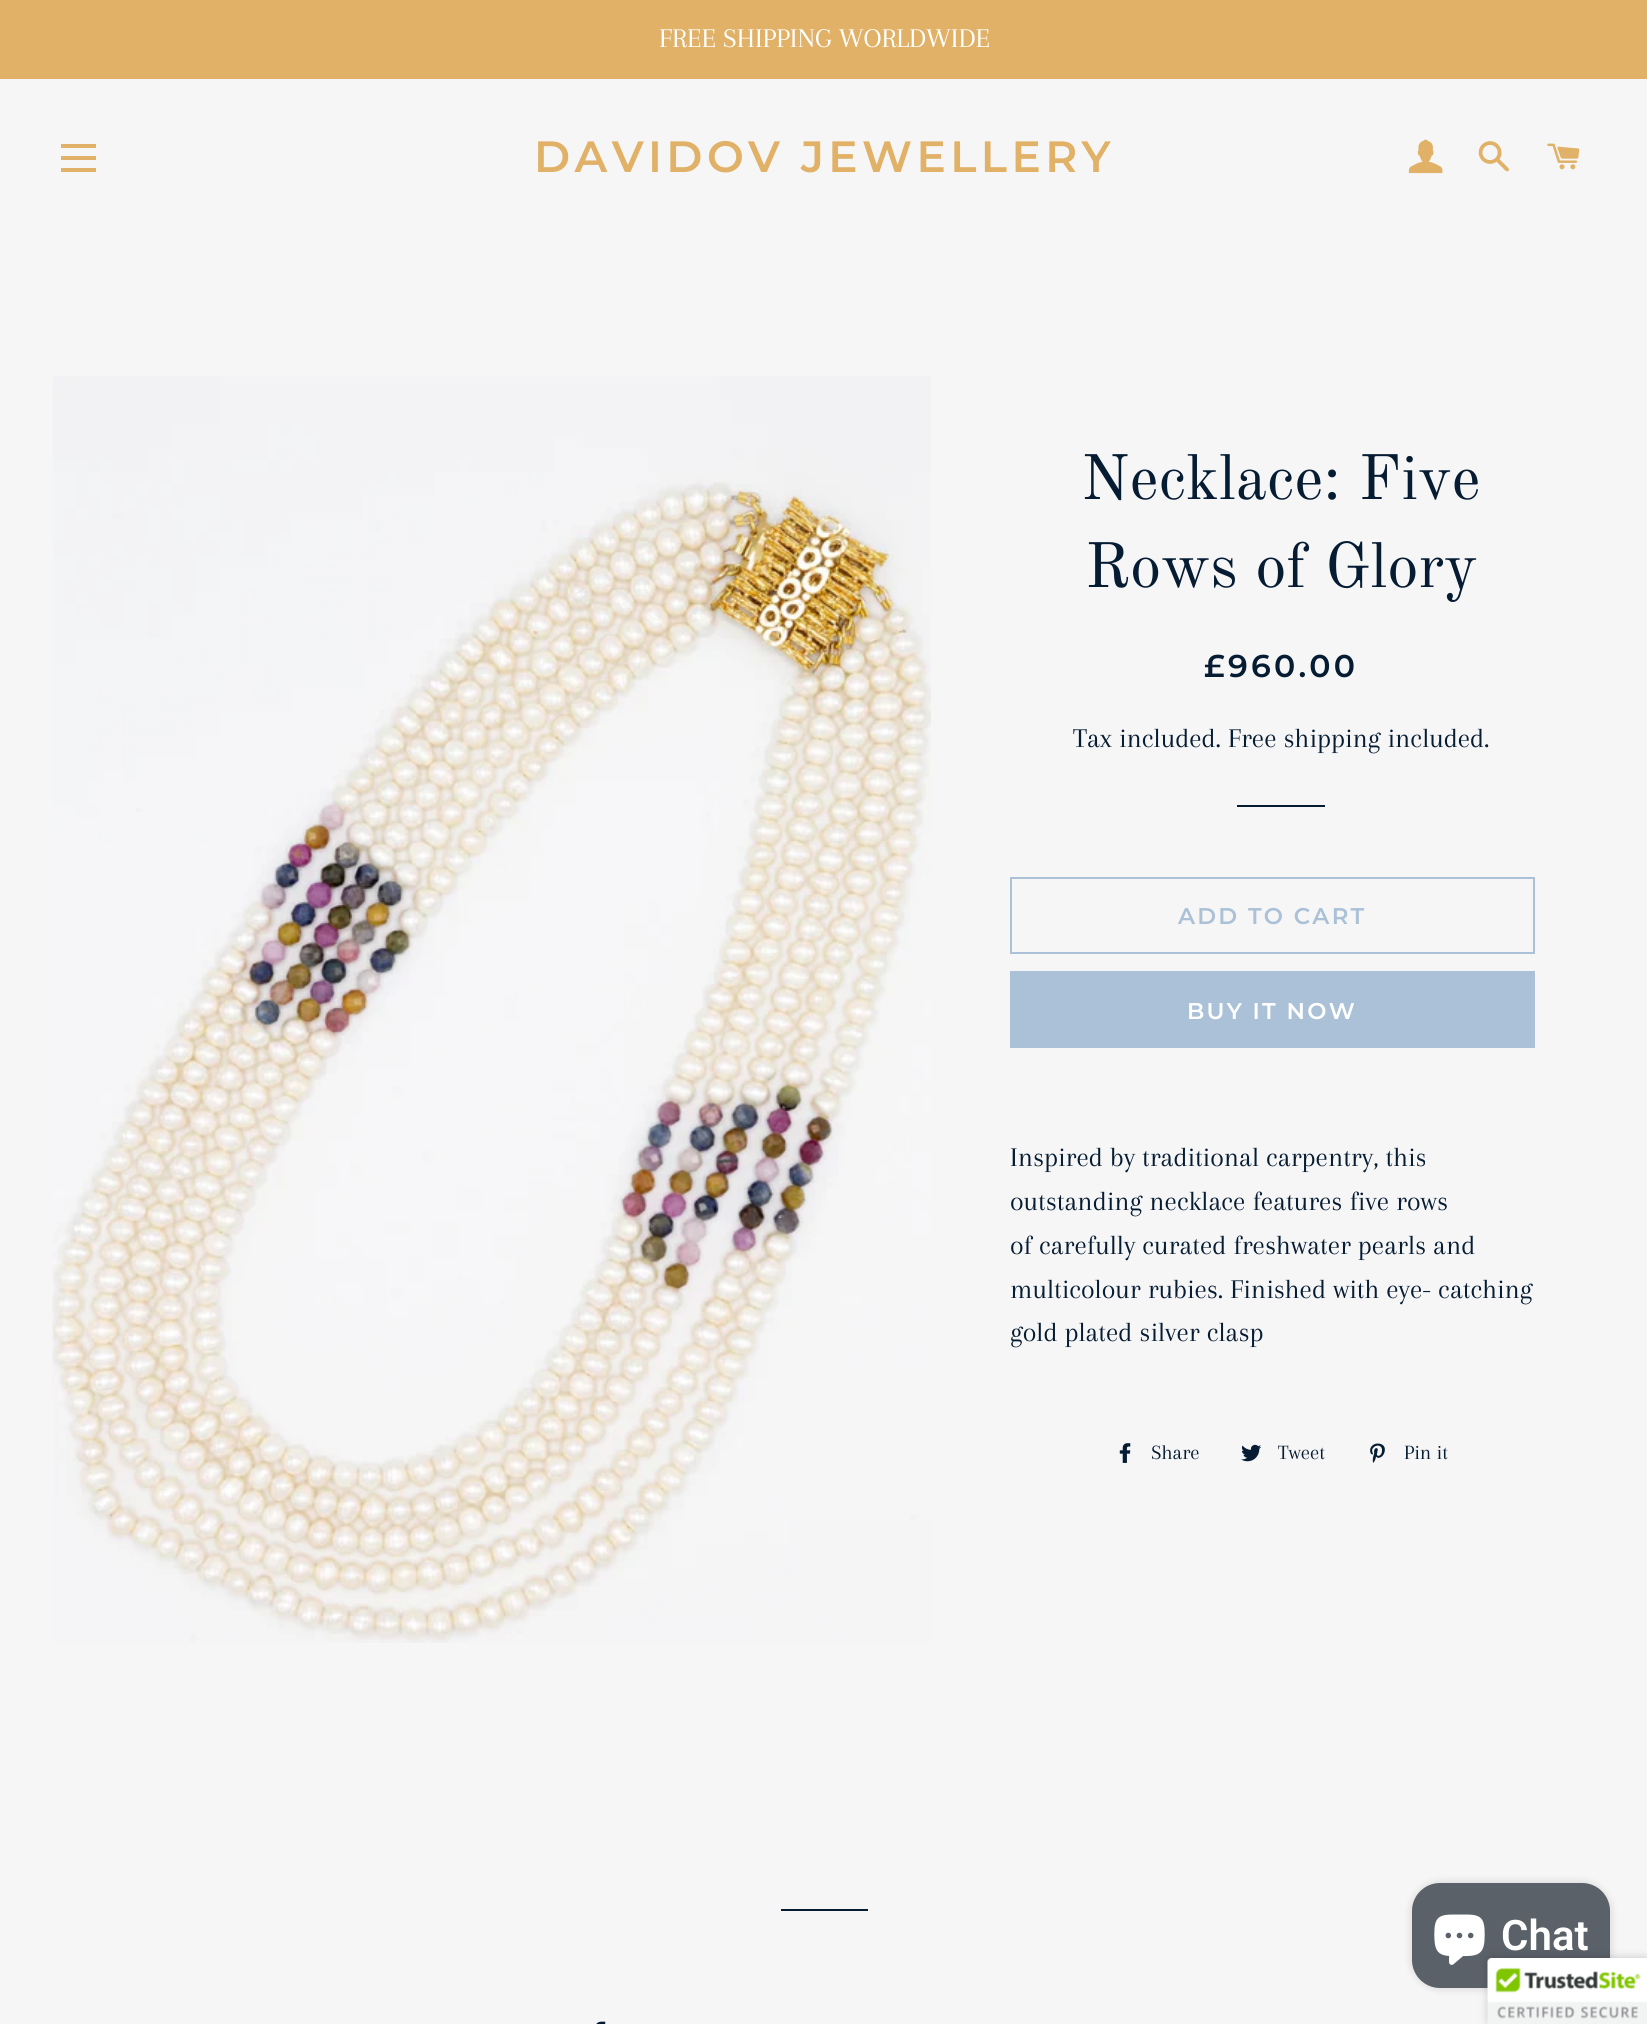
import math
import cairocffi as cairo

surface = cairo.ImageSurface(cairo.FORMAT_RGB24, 1647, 2024)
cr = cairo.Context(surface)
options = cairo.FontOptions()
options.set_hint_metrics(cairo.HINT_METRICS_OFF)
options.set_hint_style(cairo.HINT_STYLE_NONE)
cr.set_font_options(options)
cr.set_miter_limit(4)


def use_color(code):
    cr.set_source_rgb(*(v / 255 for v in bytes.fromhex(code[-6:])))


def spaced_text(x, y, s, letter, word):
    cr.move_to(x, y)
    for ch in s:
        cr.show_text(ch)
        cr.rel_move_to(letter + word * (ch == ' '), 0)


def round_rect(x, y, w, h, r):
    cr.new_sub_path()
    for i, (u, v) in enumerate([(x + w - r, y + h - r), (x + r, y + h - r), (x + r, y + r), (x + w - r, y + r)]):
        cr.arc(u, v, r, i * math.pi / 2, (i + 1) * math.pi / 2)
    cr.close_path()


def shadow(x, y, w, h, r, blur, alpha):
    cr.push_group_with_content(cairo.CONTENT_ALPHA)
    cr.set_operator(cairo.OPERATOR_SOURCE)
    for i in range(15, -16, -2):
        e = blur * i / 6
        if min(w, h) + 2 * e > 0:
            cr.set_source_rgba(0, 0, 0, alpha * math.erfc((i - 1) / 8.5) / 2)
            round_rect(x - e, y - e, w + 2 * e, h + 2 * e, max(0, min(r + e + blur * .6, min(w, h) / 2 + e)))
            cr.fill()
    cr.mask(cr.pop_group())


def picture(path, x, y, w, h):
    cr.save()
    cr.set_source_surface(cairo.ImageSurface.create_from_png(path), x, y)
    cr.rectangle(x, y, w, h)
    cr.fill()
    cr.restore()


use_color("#f6f6f6")
cr.paint()
use_color("#e0b166")
cr.rectangle(0, 0, 1647, 79)
cr.fill()
cr.select_font_face("Arapey")
cr.set_font_size(28)
use_color("#ffffff")
cr.move_to(659, 47)
cr.show_text("FREE SHIPPING WORLDWIDE")
use_color("#e0b166")
cr.rectangle(61, 144, 35, 4)
cr.fill()
cr.rectangle(61, 156, 35, 4)
cr.fill()
cr.rectangle(61, 168, 35, 4)
cr.fill()
cr.select_font_face("Montserrat SemiBold")
cr.set_font_size(43.75)
spaced_text(534, 172, "DAVIDOV JEWELLERY", 4.4, 0)
picture("img1.png", 1408, 139, 35, 35)
picture("img2.png", 1478, 141, 31, 31)
picture("img3.png", 1547, 143, 33, 27)
picture("img4.png", 52, 376, 879, 1267)
cr.select_font_face("Old Standard TT")
cr.set_font_size(63)
use_color("#061c33")
cr.move_to(1081, 499)
cr.show_text("Necklace: Five")
cr.move_to(1085, 587)
cr.show_text("Rows of Glory")
cr.select_font_face("Montserrat SemiBold")
cr.set_font_size(31.5)
spaced_text(1204, 677, "£960.00", 3.25, 0)
cr.select_font_face("Arapey")
cr.set_font_size(28)
cr.move_to(1073, 747)
cr.show_text("Tax included. Free shipping included.")
cr.rectangle(1237, 805, 88, 2)
cr.fill()
cr.rectangle(1011, 878, 523, 75)
use_color("#abc1d7")
cr.stroke()
cr.select_font_face("Montserrat SemiBold")
cr.set_font_size(22.75)
spaced_text(1178, 924, "ADD TO CART", 2.25, 0)
cr.rectangle(1010, 971, 525, 77)
cr.fill()
use_color("#ffffff")
spaced_text(1187, 1019, "BUY IT NOW", 2.25, 0)
cr.select_font_face("Arapey")
cr.set_font_size(28)
use_color("#061c33")
cr.move_to(1010, 1166)
cr.show_text("Inspired by traditional carpentry, this")
cr.move_to(1010, 1210)
cr.show_text("outstanding necklace features five rows")
cr.move_to(1010, 1254)
cr.show_text("of carefully curated freshwater pearls and")
cr.move_to(1010, 1298)
cr.show_text("multicolour rubies. Finished with eye- catching")
cr.move_to(1010, 1341)
cr.show_text("gold plated silver clasp")
picture("img5.png", 1119, 1443, 12, 20)
cr.set_font_size(21)
cr.move_to(1151, 1459)
cr.show_text("Share")
picture("img6.png", 1241, 1444, 21, 18)
cr.move_to(1278, 1459)
cr.show_text("Tweet")
picture("img7.png", 1370, 1443, 15, 20)
cr.move_to(1404, 1459)
cr.show_text("Pin it")
cr.rectangle(781, 1909, 87, 2)
cr.fill()
picture("img8.png", 596, 2021, 10, 3)
use_color("#000000")
shadow(1412, 1883, 198, 105, 28, 4.5, 0.15)
use_color("#5b6168")
round_rect(1412, 1883, 198, 105, 28)
cr.fill()
picture("img9.png", 1434, 1914, 51, 51)
cr.select_font_face("Roboto SemiBold")
cr.set_font_size(42)
use_color("#ffffff")
cr.move_to(1501, 1950)
cr.show_text("Chat")
use_color("#000000")
shadow(1488, 1958, 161, 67, 4, 4.5, 0.2)
use_color("#ffffff")
cr.new_path()
cr.move_to(1492, 1958)
cr.line_to(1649, 1958)
cr.line_to(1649, 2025)
cr.line_to(1488, 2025)
cr.line_to(1488, 1962)
cr.curve_to(1488, 1960, 1490, 1958, 1492, 1958)
cr.close_path()
cr.fill()
picture("img10.png", 1487, 1958, 160, 66)
surface.write_to_png("result.png")
